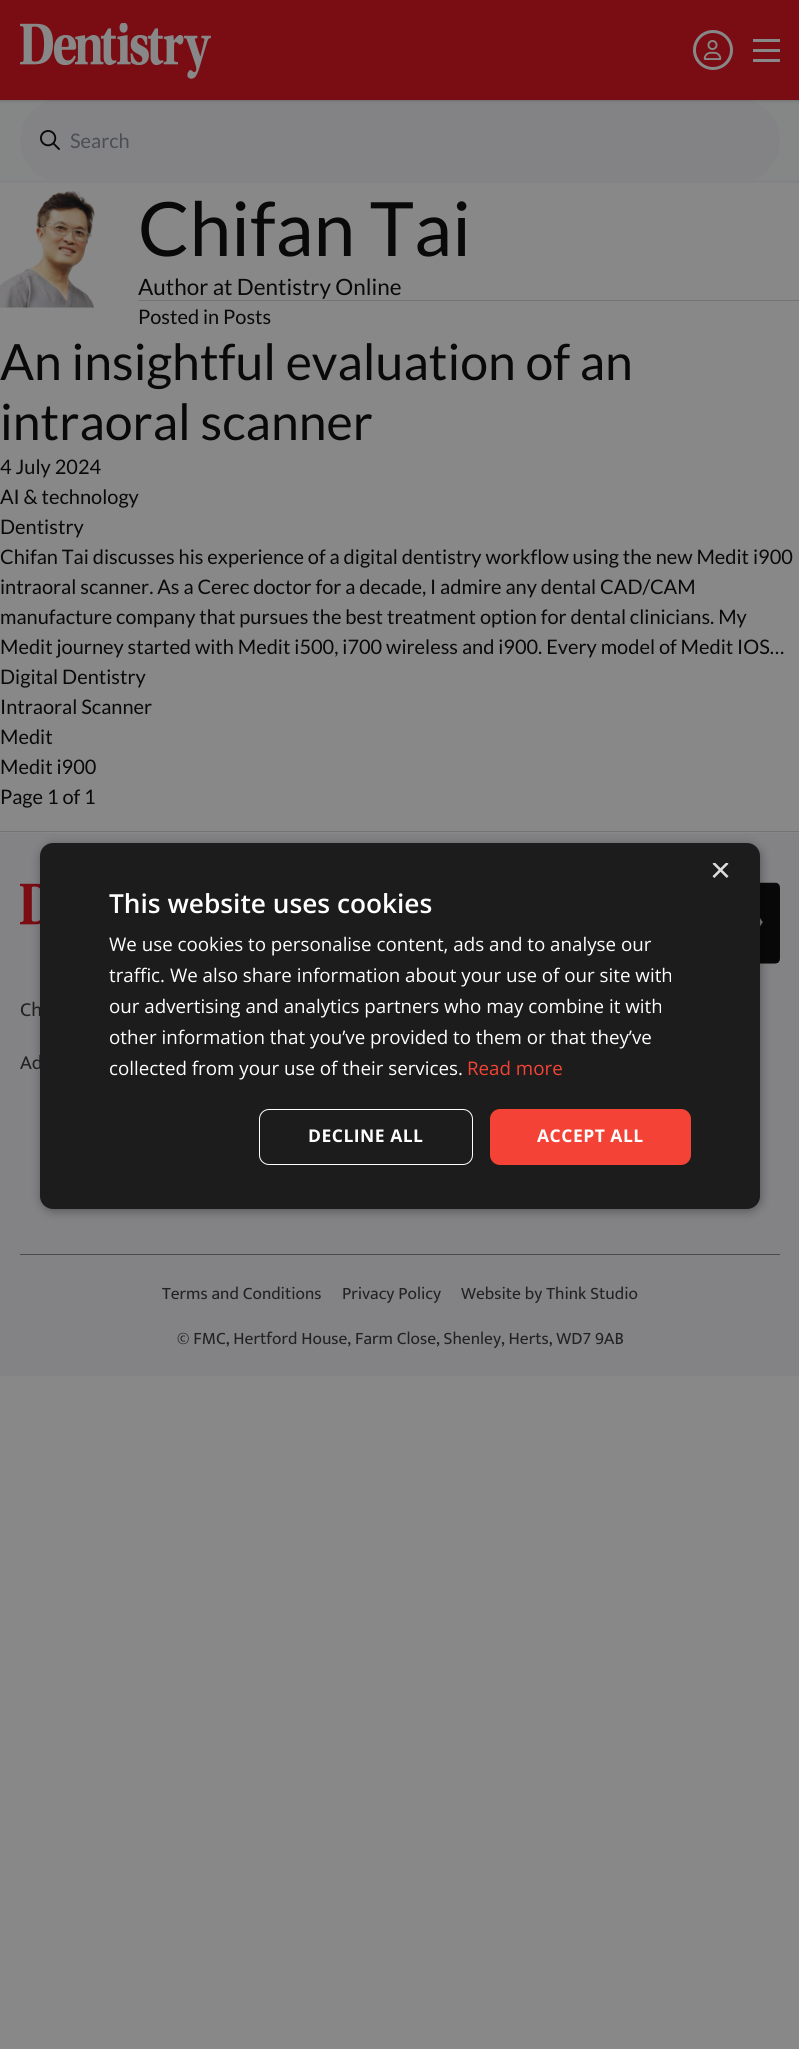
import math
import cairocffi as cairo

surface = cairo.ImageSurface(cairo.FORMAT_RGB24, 799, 2049)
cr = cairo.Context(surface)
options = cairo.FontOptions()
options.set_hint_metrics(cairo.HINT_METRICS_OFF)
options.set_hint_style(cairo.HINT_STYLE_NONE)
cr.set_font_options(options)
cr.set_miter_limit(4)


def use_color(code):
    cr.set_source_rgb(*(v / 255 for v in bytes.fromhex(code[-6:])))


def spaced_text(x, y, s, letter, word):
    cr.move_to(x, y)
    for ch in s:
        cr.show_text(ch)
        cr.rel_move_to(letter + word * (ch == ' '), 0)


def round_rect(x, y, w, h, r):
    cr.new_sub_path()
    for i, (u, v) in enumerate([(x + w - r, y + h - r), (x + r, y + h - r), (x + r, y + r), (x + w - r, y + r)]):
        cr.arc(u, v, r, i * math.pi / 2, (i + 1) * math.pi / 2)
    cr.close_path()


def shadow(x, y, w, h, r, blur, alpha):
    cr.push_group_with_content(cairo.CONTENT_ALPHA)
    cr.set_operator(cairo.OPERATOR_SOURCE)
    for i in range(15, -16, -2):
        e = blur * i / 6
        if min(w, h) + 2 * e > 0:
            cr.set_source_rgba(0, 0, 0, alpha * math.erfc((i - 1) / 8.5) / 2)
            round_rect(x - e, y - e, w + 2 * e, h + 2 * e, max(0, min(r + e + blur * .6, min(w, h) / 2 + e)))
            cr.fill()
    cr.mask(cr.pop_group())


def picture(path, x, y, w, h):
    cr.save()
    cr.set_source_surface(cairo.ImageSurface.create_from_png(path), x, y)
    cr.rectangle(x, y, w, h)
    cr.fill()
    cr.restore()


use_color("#888888")
cr.paint()
use_color("#858686")
cr.rectangle(0, 100, 799, 80)
cr.fill()
use_color("#838386")
cr.rectangle(0, 180, 799, 3)
cr.fill()
round_rect(20, 98, 760, 85, 42.5)
cr.fill()
use_color("#090909")
shadow(1, 3, 798, 97, 0, 1, 0.1)
shadow(1, -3, 798, 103, 0, 1, 0.1)
shadow(0, -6, 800, 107, 0, 2, 0.1)
use_color("#7a0c13")
cr.rectangle(0, 0, 799, 100)
cr.fill()
picture("img1.png", 20, 23, 191, 56)
cr.arc(713, 50, 18.5, 0, 2 * math.pi)
use_color("#888888")
cr.set_line_width(3)
cr.stroke()
picture("img2.png", 703, 40, 19, 20)
cr.rectangle(753, 39, 27, 3)
cr.fill()
cr.rectangle(753, 49, 27, 3)
cr.fill()
cr.rectangle(753, 59, 27, 3)
cr.fill()
picture("img3.png", 40, 130, 20, 20)
cr.select_font_face("Lato")
cr.set_font_size(20)
use_color("#4b4f54")
cr.move_to(70, 148)
cr.show_text("Search")
picture("img4.png", 0, 191, 95, 117)
cr.set_font_size(75)
use_color("#090909")
cr.move_to(138, 256)
cr.show_text("Chifan Tai")
cr.set_font_size(22.5)
cr.move_to(138, 295)
cr.show_text("Author at Dentistry Online")
use_color("#747474")
cr.rectangle(138, 300, 661, 1)
cr.fill()
cr.set_font_size(20)
use_color("#090909")
cr.move_to(138, 324)
cr.show_text("Posted in Posts")
cr.set_font_size(50)
cr.move_to(0, 380)
cr.show_text("An insightful evaluation of an")
cr.move_to(0, 440)
cr.show_text("intraoral scanner")
cr.set_font_size(20)
cr.move_to(0, 474)
cr.show_text("4 July 2024")
cr.move_to(0, 504)
cr.show_text("AI & technology")
cr.move_to(0, 534)
cr.show_text("Dentistry")
cr.move_to(0, 564)
cr.show_text("Chifan Tai discusses his experience of a digital dentistry workflow using the new Medit i900")
cr.move_to(0, 594)
cr.show_text("intraoral scanner. As a Cerec doctor for a decade, I admire any dental CAD/CAM")
cr.move_to(0, 624)
cr.show_text("manufacture company that pursues the best treatment option for dental clinicians. My")
cr.move_to(0, 654)
cr.show_text("Medit journey started with Medit i500, i700 wireless and i900. Every model of Medit IOS…")
cr.move_to(0, 684)
cr.show_text("Digital Dentistry")
cr.move_to(0, 714)
cr.show_text("Intraoral Scanner")
cr.move_to(0, 744)
cr.show_text("Medit")
cr.move_to(0, 774)
cr.show_text("Medit i900")
cr.move_to(0, 804)
cr.show_text("Page 1 of 1")
use_color("#747474")
cr.rectangle(0, 831, 799, 1)
cr.fill()
use_color("#838386")
cr.rectangle(0, 833, 799, 543)
cr.fill()
picture("img5.png", 20, 883, 20, 42)
picture("img6.png", 760, 882, 20, 82)
cr.select_font_face("Mukta")
use_color("#222222")
cr.move_to(20, 1016)
cr.show_text("Ch")
cr.move_to(20, 1069)
cr.show_text("Ad")
use_color("#4b4b4b")
cr.rectangle(20, 1254, 760, 1)
cr.fill()
cr.set_font_size(17.5)
use_color("#222222")
cr.move_to(162, 1299)
cr.show_text("Terms and Conditions")
cr.move_to(342, 1299)
cr.show_text("Privacy Policy")
cr.move_to(461, 1299)
cr.show_text("Website by Think Studio")
cr.move_to(177, 1344)
cr.show_text("© FMC, Hertford House, Farm Close, Shenley, Herts, WD7 9AB")
use_color("#000000")
shadow(41, 845, 720, 366, 13, 5, 0.35)
use_color("#1c1c1c")
round_rect(40, 843, 720, 366, 13)
cr.fill()
cr.save()
cr.rectangle(710, 863, 19, 18)
cr.clip()
cr.select_font_face("Liberation Sans")
cr.set_font_size(36)
use_color("#dddddd")
cr.move_to(710, 882)
cr.show_text("×")
cr.restore()
cr.select_font_face("Open Sans SemiBold")
cr.set_font_size(26.25)
use_color("#ffffff")
cr.move_to(109, 913)
cr.show_text("This website uses cookies")
cr.select_font_face("Open Sans")
cr.set_font_size(18.75)
cr.move_to(109, 951)
cr.show_text("We use cookies to personalise content, ads and to analyse our")
cr.move_to(109, 982)
cr.show_text("traffic. We also share information about your use of our site with")
cr.move_to(109, 1013)
cr.show_text("our advertising and analytics partners who may combine it with")
cr.move_to(109, 1044)
cr.show_text("other information that you’ve provided to them or that they’ve")
cr.move_to(109, 1075)
cr.show_text("collected from your use of their services.")
use_color("#f44336")
cr.move_to(467, 1075)
cr.show_text("Read more")
round_rect(259.5, 1109.5, 213, 55, 9.5)
use_color("#ffffff")
cr.set_line_width(1)
cr.stroke()
cr.select_font_face("Open Sans", cairo.FONT_SLANT_NORMAL, cairo.FONT_WEIGHT_BOLD)
cr.set_font_size(17.5)
spaced_text(308, 1142, "DECLINE ALL", 0.5, 0)
use_color("#f44336")
round_rect(490, 1109, 201, 56, 10)
cr.fill()
use_color("#ffffff")
spaced_text(537, 1142, "ACCEPT ALL", 0.5, 0)
surface.write_to_png("result.png")
